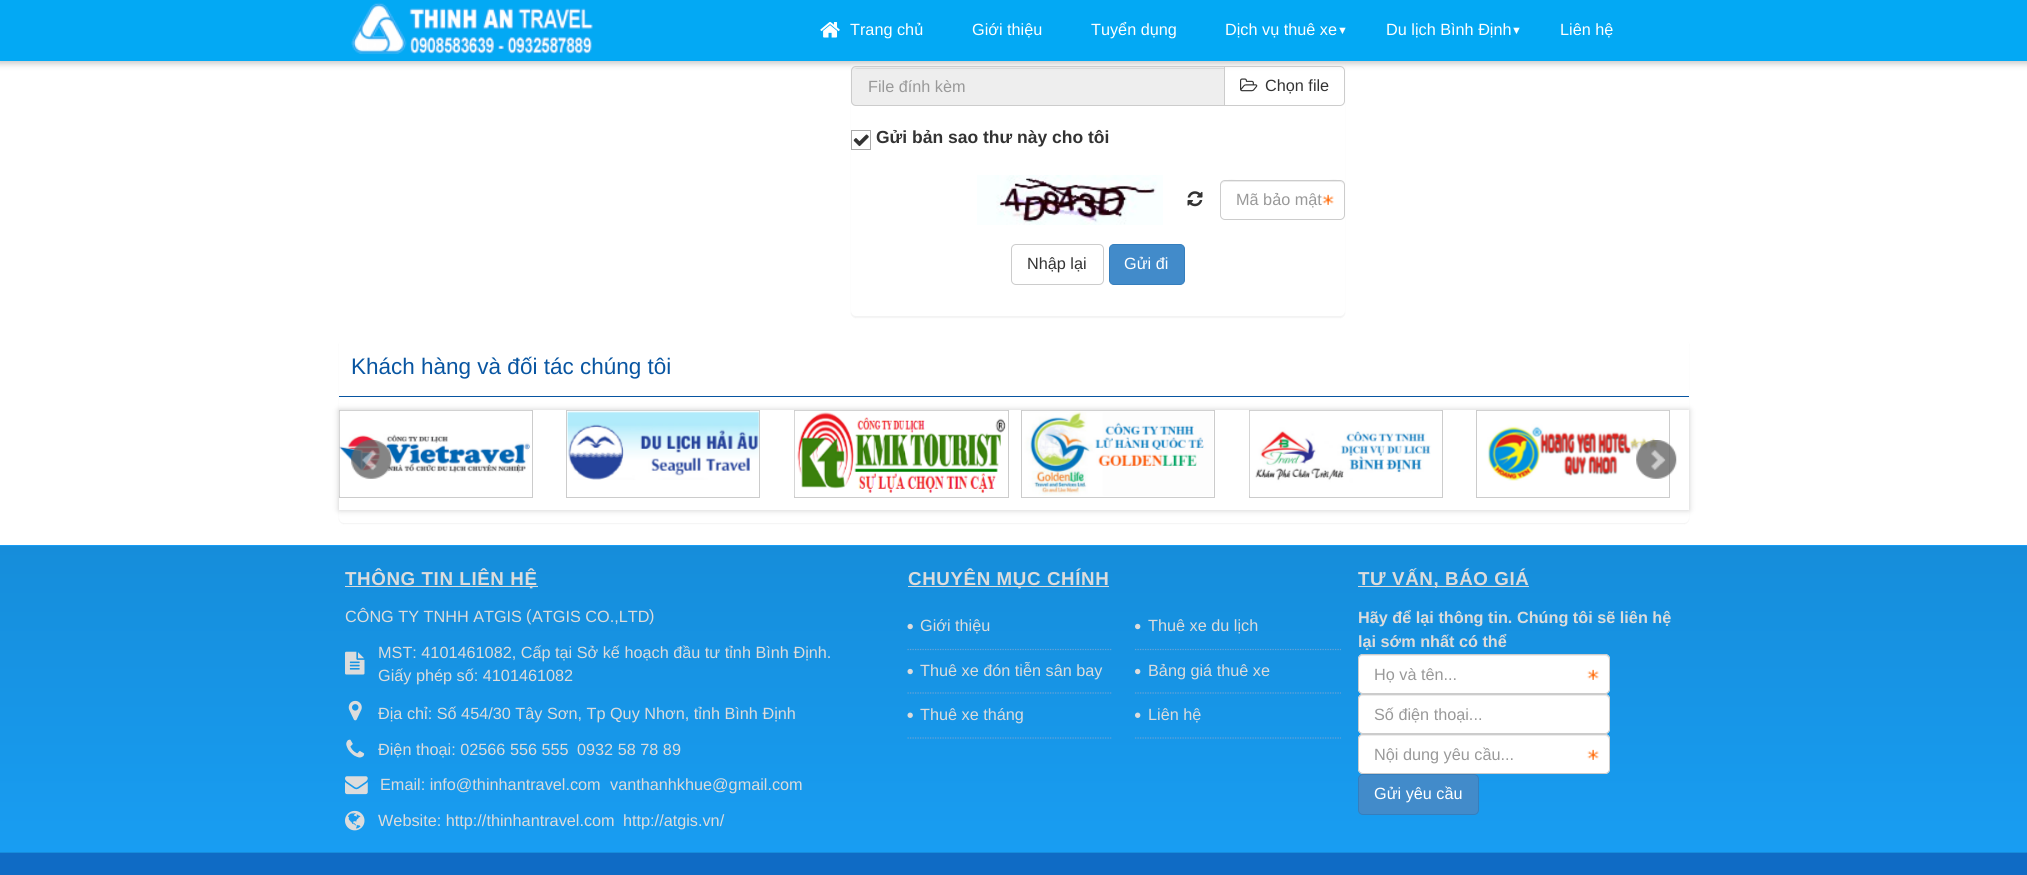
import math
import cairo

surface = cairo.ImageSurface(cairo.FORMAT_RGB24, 2027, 875)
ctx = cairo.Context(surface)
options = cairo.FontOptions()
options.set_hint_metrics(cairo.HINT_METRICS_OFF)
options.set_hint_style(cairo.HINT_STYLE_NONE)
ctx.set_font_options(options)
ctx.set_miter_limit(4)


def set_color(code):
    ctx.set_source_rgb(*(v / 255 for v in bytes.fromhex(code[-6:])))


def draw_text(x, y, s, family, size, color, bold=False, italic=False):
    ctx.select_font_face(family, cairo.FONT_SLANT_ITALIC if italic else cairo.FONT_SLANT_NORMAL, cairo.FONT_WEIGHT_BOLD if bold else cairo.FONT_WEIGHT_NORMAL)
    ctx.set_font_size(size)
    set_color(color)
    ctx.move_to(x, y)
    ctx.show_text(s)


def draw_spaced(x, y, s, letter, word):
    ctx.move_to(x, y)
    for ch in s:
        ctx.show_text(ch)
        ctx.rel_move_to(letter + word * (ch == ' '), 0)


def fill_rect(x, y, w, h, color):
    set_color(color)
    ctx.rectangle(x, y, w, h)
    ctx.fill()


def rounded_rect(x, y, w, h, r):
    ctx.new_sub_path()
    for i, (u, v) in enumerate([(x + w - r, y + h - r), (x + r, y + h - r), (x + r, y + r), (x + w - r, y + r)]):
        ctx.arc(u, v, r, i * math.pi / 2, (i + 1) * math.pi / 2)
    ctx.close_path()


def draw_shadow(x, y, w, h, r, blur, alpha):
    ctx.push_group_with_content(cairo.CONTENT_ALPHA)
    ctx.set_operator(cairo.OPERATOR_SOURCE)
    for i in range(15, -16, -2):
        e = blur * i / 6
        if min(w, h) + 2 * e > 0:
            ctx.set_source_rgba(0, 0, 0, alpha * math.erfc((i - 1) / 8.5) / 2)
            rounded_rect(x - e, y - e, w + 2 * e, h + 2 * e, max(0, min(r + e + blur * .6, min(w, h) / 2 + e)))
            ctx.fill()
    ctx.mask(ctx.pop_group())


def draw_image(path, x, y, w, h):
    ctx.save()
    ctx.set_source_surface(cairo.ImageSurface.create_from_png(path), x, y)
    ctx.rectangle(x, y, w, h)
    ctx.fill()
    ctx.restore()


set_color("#ffffff")
ctx.paint()
set_color("#000000")
draw_shadow(851, -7, 494, 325, 5, 0.5, 0.05)
set_color("#ffffff")
rounded_rect(851, -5, 494, 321, 5)
ctx.fill()
set_color("#eeeeee")
ctx.new_path()
ctx.move_to(856, 66)
ctx.line_to(1225, 66)
ctx.line_to(1225, 106)
ctx.line_to(856, 106)
ctx.curve_to(853, 106, 851, 104, 851, 101)
ctx.line_to(851, 71)
ctx.curve_to(851, 68, 853, 66, 856, 66)
ctx.close_path()
ctx.fill()
set_color("#dcdcdc")
ctx.new_path()
ctx.move_to(856, 69)
ctx.line_to(1224, 69)
ctx.line_to(1224, 68)
ctx.line_to(857, 68)
ctx.curve_to(856, 68, 855, 69, 854, 69)
ctx.close_path()
ctx.fill()
ctx.new_path()
ctx.move_to(856, 66.5)
ctx.line_to(1224.5, 66.5)
ctx.line_to(1224.5, 105.5)
ctx.line_to(856, 105.5)
ctx.curve_to(853.5, 105.5, 851.5, 103.5, 851.5, 101)
ctx.line_to(851.5, 71)
ctx.curve_to(851.5, 68.5, 853.5, 66.5, 856, 66.5)
ctx.close_path()
set_color("#cccccc")
ctx.set_line_width(1)
ctx.stroke()
set_color("#ffffff")
ctx.new_path()
ctx.move_to(1224.5, 66.5)
ctx.line_to(1340, 66.5)
ctx.curve_to(1342.5, 66.5, 1344.5, 68.5, 1344.5, 71)
ctx.line_to(1344.5, 101)
ctx.curve_to(1344.5, 103.5, 1342.5, 105.5, 1340, 105.5)
ctx.line_to(1224.5, 105.5)
ctx.close_path()
ctx.fill_preserve()
set_color("#cccccc")
ctx.stroke()
set_color("#cccccc")
draw_shadow(-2, -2, 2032, 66, 0, 3, 1)
fill_rect(0, 0, 2027, 61, "#03a9f4")
draw_image("assets/img1.png", 351, 2, 242, 52)
draw_image("assets/img2.png", 820, 22, 20, 16)
draw_text(850, 35, "Trang chủ", "Liberation Sans", 16.25, "#ffffff")
draw_text(972, 35, "Giới thiệu", "Liberation Sans", 16.25, "#ffffff")
draw_text(1091, 35, "Tuyển dụng", "Liberation Sans", 16.25, "#ffffff")
draw_text(1225, 35, "Dịch vụ thuê xe", "Liberation Sans", 16.25, "#ffffff")
draw_text(1337, 34, "▼", "Liberation Sans", 11, "#ffffff", italic=True)
draw_text(1386, 35, "Du lịch Bình Định", "Liberation Sans", 16.25, "#ffffff")
draw_text(1511, 34, "▼", "Liberation Sans", 11, "#ffffff", italic=True)
draw_text(1560, 35, "Liên hệ", "Liberation Sans", 16.25, "#ffffff")
draw_text(868, 92, "File đính kèm", "Liberation Sans", 16.25, "#999999")
draw_image("assets/img3.png", 1240, 78, 18, 14)
draw_text(1265, 91, "Chọn file", "Liberation Sans", 16.25, "#333333")
ctx.rectangle(851.5, 130.5, 19, 19)
set_color("#aaaaaa")
ctx.stroke()
draw_image("assets/img4.png", 853, 134, 16, 13)
draw_text(876, 143, "Gửi bản sao thư này cho tôi", "Liberation Sans", 17.5, "#333333", bold=True)
draw_image("assets/img5.png", 977, 175, 186, 50)
draw_image("assets/img6.png", 1187, 191, 16, 16)
draw_image("assets/img7.png", 1322, 194, 12, 11)
set_color("#ececec")
ctx.new_path()
ctx.move_to(1225, 182)
ctx.line_to(1340, 182)
ctx.curve_to(1342, 182, 1344, 184, 1344, 186)
ctx.curve_to(1344, 176, 1324, 181, 1321, 181)
ctx.line_to(1244, 181)
ctx.curve_to(1241, 181, 1221, 176, 1221, 186)
ctx.curve_to(1221, 184, 1223, 182, 1225, 182)
ctx.close_path()
ctx.fill()
rounded_rect(1220.5, 180.5, 124, 39, 4.5)
set_color("#cccccc")
ctx.stroke()
draw_text(1236, 205, "Mã bảo mật", "Liberation Sans", 16.25, "#999999")
rounded_rect(1011.5, 244.5, 92, 40, 4.5)
set_color("#cccccc")
ctx.stroke()
draw_text(1027, 269, "Nhập lại", "Liberation Sans", 16.25, "#333333")
set_color("#428bca")
rounded_rect(1109.5, 244.5, 75, 40, 4.5)
ctx.fill_preserve()
set_color("#357ebd")
ctx.stroke()
draw_text(1124, 269, "Gửi đi", "Liberation Sans", 16.25, "#ffffff")
set_color("#000000")
draw_shadow(339, 340, 1350, 184, 5, 0.5, 0.05)
set_color("#ffffff")
rounded_rect(339, 339, 1350, 184, 5)
ctx.fill()
fill_rect(339, 396, 1350, 1, "#0855a1")
draw_text(351, 374, "Khách hàng và đối tác chúng tôi", "Liberation Sans", 22.5, "#0855a1")
set_color("#cccccc")
draw_shadow(339, 410, 1350, 100, 0, 3, 1)
fill_rect(339, 410, 1350, 100, "#ffffff")
ctx.rectangle(339.5, 410.5, 193, 87)
set_color("#cccccc")
ctx.stroke()
draw_image("assets/img8.png", 339, 410, 192, 86)
ctx.rectangle(566.5, 410.5, 193, 87)
ctx.stroke()
draw_image("assets/img9.png", 567, 410, 192, 70)
ctx.rectangle(794.5, 410.5, 214, 87)
ctx.stroke()
draw_image("assets/img10.png", 794, 410, 213, 86)
ctx.rectangle(1021.5, 410.5, 193, 87)
ctx.stroke()
draw_image("assets/img11.png", 1023, 410, 190, 86)
ctx.rectangle(1249.5, 410.5, 193, 87)
ctx.stroke()
draw_image("assets/img12.png", 1249, 410, 192, 86)
ctx.rectangle(1476.5, 410.5, 193, 87)
ctx.stroke()
draw_image("assets/img13.png", 1478, 410, 191, 71)
draw_image("assets/img14.png", 351, 440, 41, 39)
draw_image("assets/img15.png", 1636, 440, 41, 39)
fill_rect(0, 545, 2027, 1, "#189cf4")
gradient = cairo.LinearGradient(1014, 546, 1014, 851)
gradient.add_color_stop_rgba(0, 0.086, 0.553, 0.855, 1)
gradient.add_color_stop_rgba(1, 0.094, 0.616, 0.949, 1)
ctx.set_source(gradient)
ctx.rectangle(0, 546, 2027, 305)
ctx.fill()
gradient = cairo.LinearGradient(1014, 851, 1014, 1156)
gradient.add_color_stop_rgba(0, 0.086, 0.549, 0.863, 1)
gradient.add_color_stop_rgba(1, 0.094, 0.612, 0.957, 1)
ctx.set_source(gradient)
ctx.rectangle(0, 852, 2027, 1)
ctx.fill()
fill_rect(0, 851, 2027, 1, "#189cf4")
fill_rect(345, 586, 193, 1, "#dcdcdc")
ctx.select_font_face("Liberation Sans", cairo.FONT_SLANT_NORMAL, cairo.FONT_WEIGHT_BOLD)
ctx.set_font_size(18.75)
draw_spaced(345, 585, "THÔNG TIN LIÊN HỆ", 0.6, 0)
draw_text(345, 622, "CÔNG TY TNHH ATGIS", "Liberation Sans", 16.25, "#dcdcdc")
draw_text(526, 621, "(", "Liberation Sans", 16.25, "#dcdcdc")
draw_text(532, 622, "ATGIS CO.,LTD", "Liberation Sans", 16.25, "#dcdcdc")
draw_text(649, 621, ")", "Liberation Sans", 16.25, "#dcdcdc")
draw_image("assets/img16.png", 345, 651, 20, 24)
draw_text(378, 658, "MST: 4101461082, Cấp tại Sở kế hoạch đầu tư tỉnh Bình Định.", "Liberation Sans", 16.25, "#dcdcdc")
draw_text(378, 681, "Giấy phép số: 4101461082", "Liberation Sans", 16.25, "#dcdcdc")
draw_image("assets/img17.png", 348, 700, 14, 21)
draw_text(378, 719, "Địa chỉ: Số 454/30 Tây Sơn, Tp Quy Nhơn, tỉnh Bình Định", "Liberation Sans", 16.25, "#dcdcdc")
draw_image("assets/img18.png", 346, 739, 19, 19)
draw_text(378, 755, "Điện thoại: 02566 556 555", "Liberation Sans", 16.25, "#dcdcdc")
draw_text(577, 755, "0932 58 78 89", "Liberation Sans", 16.25, "#dcdcdc")
draw_image("assets/img19.png", 345, 776, 23, 19)
draw_text(380, 790, "Email: info@thinhantravel.com", "Liberation Sans", 16.25, "#dcdcdc")
draw_text(610, 790, "vanthanhkhue@gmail.com", "Liberation Sans", 16.25, "#dcdcdc")
draw_image("assets/img20.png", 345, 810, 20, 21)
draw_text(378, 826, "Website: http://thinhantravel.com", "Liberation Sans", 16.25, "#dcdcdc")
draw_text(623, 826, "http://atgis.vn/", "Liberation Sans", 16.25, "#dcdcdc")
fill_rect(908, 586, 201, 1, "#dcdcdc")
ctx.select_font_face("Liberation Sans", cairo.FONT_SLANT_NORMAL, cairo.FONT_WEIGHT_BOLD)
ctx.set_font_size(18.75)
draw_spaced(908, 585, "CHUYÊN MỤC CHÍNH", 0.6, 0)
ctx.new_path()
ctx.move_to(907.5, 649.5)
ctx.line_to(1112.5, 649.5)
set_color("#6aa3d5")
ctx.set_line_width(1.2)
ctx.set_dash([1.25, 1.25])
ctx.stroke()
draw_image("assets/img21.png", 907, 623, 6, 7)
draw_text(920, 631, "Giới thiệu", "Liberation Sans", 16.25, "#dcdcdc")
ctx.new_path()
ctx.move_to(1135, 649.5)
ctx.line_to(1341, 649.5)
set_color("#6aa3d5")
ctx.stroke()
draw_image("assets/img22.png", 1135, 623, 6, 7)
draw_text(1148, 631, "Thuê xe du lịch", "Liberation Sans", 16.25, "#dcdcdc")
ctx.new_path()
ctx.move_to(907.5, 693)
ctx.line_to(1112.5, 693)
set_color("#6aa3d5")
ctx.stroke()
draw_image("assets/img23.png", 907, 668, 6, 7)
draw_text(920, 676, "Thuê xe đón tiễn sân bay", "Liberation Sans", 16.25, "#dcdcdc")
ctx.new_path()
ctx.move_to(1135, 693)
ctx.line_to(1341, 693)
set_color("#6aa3d5")
ctx.stroke()
draw_image("assets/img24.png", 1135, 668, 6, 7)
draw_text(1148, 676, "Bảng giá thuê xe", "Liberation Sans", 16.25, "#dcdcdc")
ctx.new_path()
ctx.move_to(907.5, 738)
ctx.line_to(1112.5, 738)
set_color("#6aa3d5")
ctx.stroke()
draw_image("assets/img25.png", 907, 712, 6, 6)
draw_text(920, 720, "Thuê xe tháng", "Liberation Sans", 16.25, "#dcdcdc")
ctx.new_path()
ctx.move_to(1135, 738)
ctx.line_to(1341, 738)
set_color("#6aa3d5")
ctx.stroke()
draw_image("assets/img26.png", 1135, 712, 6, 6)
draw_text(1148, 720, "Liên hệ", "Liberation Sans", 16.25, "#dcdcdc")
fill_rect(1358, 586, 171, 1, "#dcdcdc")
ctx.select_font_face("Liberation Sans", cairo.FONT_SLANT_NORMAL, cairo.FONT_WEIGHT_BOLD)
ctx.set_font_size(18.75)
draw_spaced(1358, 585, "TƯ VẤN, BÁO GIÁ", 0.6, 0)
draw_text(1358, 623, "Hãy để lại thông tin. Chúng tôi sẽ liên hệ", "Liberation Sans", 16.25, "#dcdcdc", bold=True)
draw_text(1358, 647, "lại sớm nhất có thể", "Liberation Sans", 16.25, "#dcdcdc", bold=True)
set_color("#ffffff")
rounded_rect(1358, 654, 252, 40, 5)
ctx.fill()
draw_image("assets/img7.png", 1587, 669, 12, 11)
set_color("#ececec")
ctx.new_path()
ctx.move_to(1362, 656)
ctx.line_to(1605, 656)
ctx.curve_to(1607, 656, 1609, 658, 1609, 660)
ctx.line_to(1609, 659)
ctx.curve_to(1609, 657, 1607, 655, 1605, 655)
ctx.line_to(1363, 655)
ctx.curve_to(1361, 655, 1359, 657, 1359, 659)
ctx.line_to(1359, 660)
ctx.curve_to(1359, 658, 1360, 656, 1362, 656)
ctx.close_path()
ctx.fill()
rounded_rect(1358.5, 654.5, 251, 39, 4.5)
set_color("#cccccc")
ctx.set_line_width(1)
ctx.set_dash([])
ctx.stroke()
draw_text(1374, 680, "Họ và tên...", "Liberation Sans", 16.25, "#999999")
set_color("#ffffff")
rounded_rect(1358, 694, 252, 40, 5)
ctx.fill()
set_color("#ececec")
ctx.new_path()
ctx.move_to(1362, 696)
ctx.line_to(1605, 696)
ctx.curve_to(1607, 696, 1609, 698, 1609, 700)
ctx.line_to(1609, 699)
ctx.curve_to(1609, 697, 1607, 695, 1605, 695)
ctx.line_to(1363, 695)
ctx.curve_to(1361, 695, 1359, 697, 1359, 699)
ctx.line_to(1359, 700)
ctx.curve_to(1359, 698, 1360, 696, 1362, 696)
ctx.close_path()
ctx.fill()
rounded_rect(1358.5, 694.5, 251, 39, 4.5)
set_color("#cccccc")
ctx.stroke()
draw_text(1374, 720, "Số điện thoại...", "Liberation Sans", 16.25, "#999999")
set_color("#ffffff")
rounded_rect(1358, 734, 252, 40, 5)
ctx.fill()
draw_image("assets/img7.png", 1587, 749, 12, 11)
set_color("#ececec")
ctx.new_path()
ctx.move_to(1362, 736)
ctx.line_to(1605, 736)
ctx.curve_to(1607, 736, 1609, 738, 1609, 740)
ctx.line_to(1609, 739)
ctx.curve_to(1609, 737, 1607, 735, 1605, 735)
ctx.line_to(1363, 735)
ctx.curve_to(1361, 735, 1359, 737, 1359, 739)
ctx.line_to(1359, 740)
ctx.curve_to(1359, 738, 1360, 736, 1362, 736)
ctx.close_path()
ctx.fill()
rounded_rect(1358.5, 734.5, 251, 39, 4.5)
set_color("#cccccc")
ctx.stroke()
draw_text(1374, 760, "Nội dung yêu cầu...", "Liberation Sans", 16.25, "#999999")
set_color("#428bca")
rounded_rect(1358.5, 774.5, 120, 40, 4.5)
ctx.fill_preserve()
set_color("#357ebd")
ctx.stroke()
draw_text(1374, 799, "Gửi yêu cầu", "Liberation Sans", 16.25, "#ffffff")
fill_rect(0, 853, 2027, 22, "#0f6bc5")
surface.write_to_png("output.png")
